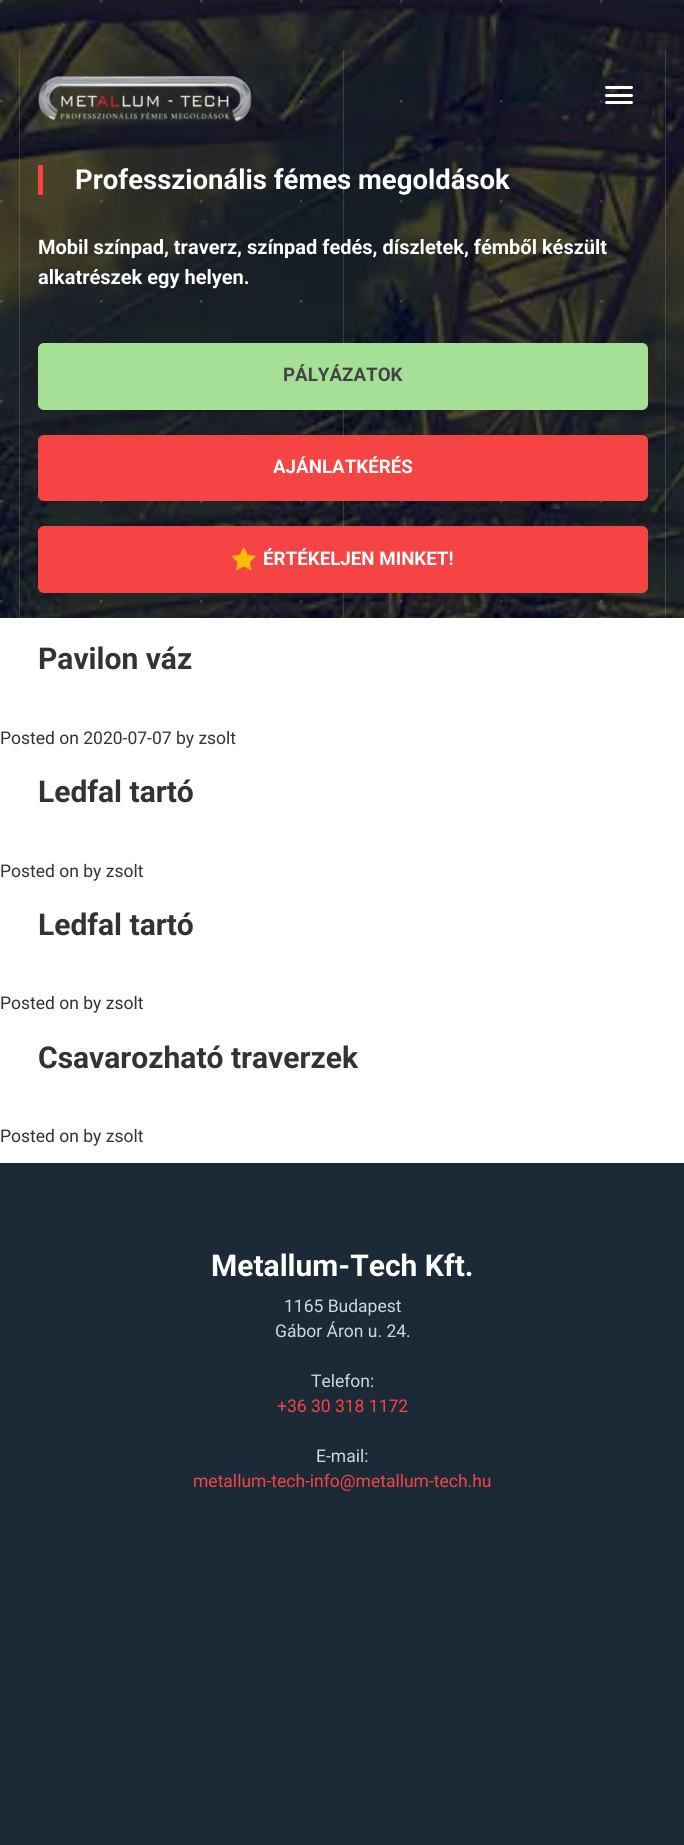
import math
import cairo

surface = cairo.ImageSurface(cairo.FORMAT_RGB24, 684, 1845)
ctx = cairo.Context(surface)
options = cairo.FontOptions()
options.set_hint_metrics(cairo.HINT_METRICS_OFF)
options.set_hint_style(cairo.HINT_STYLE_NONE)
ctx.set_font_options(options)
ctx.set_miter_limit(4)


def set_color(code):
    ctx.set_source_rgb(*(v / 255 for v in bytes.fromhex(code[-6:])))


def draw_text(x, y, s, family, size, color, bold=False, italic=False):
    ctx.select_font_face(family, cairo.FONT_SLANT_ITALIC if italic else cairo.FONT_SLANT_NORMAL, cairo.FONT_WEIGHT_BOLD if bold else cairo.FONT_WEIGHT_NORMAL)
    ctx.set_font_size(size)
    set_color(color)
    ctx.move_to(x, y)
    ctx.show_text(s)


def fill_rect(x, y, w, h, color):
    set_color(color)
    ctx.rectangle(x, y, w, h)
    ctx.fill()


def rounded_rect(x, y, w, h, r):
    ctx.new_sub_path()
    for i, (u, v) in enumerate([(x + w - r, y + h - r), (x + r, y + h - r), (x + r, y + r), (x + w - r, y + r)]):
        ctx.arc(u, v, r, i * math.pi / 2, (i + 1) * math.pi / 2)
    ctx.close_path()


def draw_image(path, x, y, w, h):
    ctx.save()
    ctx.set_source_surface(cairo.ImageSurface.create_from_png(path), x, y)
    ctx.rectangle(x, y, w, h)
    ctx.fill()
    ctx.restore()


set_color("#ffffff")
ctx.paint()
draw_image("assets/img1.png", 0, 0, 684, 618)
draw_image("assets/img2.png", 0, 0, 603, 603)
ctx.set_source_rgba(1, 1, 1, 0.15)
ctx.rectangle(19, 50, 1, 568)
ctx.fill()
ctx.rectangle(343, 50, 1, 568)
ctx.fill()
ctx.rectangle(665, 50, 1, 568)
ctx.fill()
draw_image("assets/img3.png", 38, 76, 214, 46)
set_color("#ffffff")
rounded_rect(605, 86, 28, 3, 1.5)
ctx.fill()
rounded_rect(605, 94, 28, 3, 1.5)
ctx.fill()
rounded_rect(605, 101, 28, 3, 1.5)
ctx.fill()
fill_rect(38, 165, 5, 30, "#f64444")
draw_text(75, 189, "Professzionális fémes megoldások", "Roboto", 27.5, "#ffffff", bold=True)
draw_text(38, 254, "Mobil színpad, traverz, színpad fedés, díszletek, fémből készült", "Roboto", 20, "#ffffff", bold=True)
draw_text(38, 284, "alkatrészek egy helyen.", "Roboto", 20, "#ffffff", bold=True)
set_color("#a6e096")
rounded_rect(38.5, 343.5, 609, 66, 5.5)
ctx.fill_preserve()
ctx.set_line_width(1)
ctx.stroke()
draw_text(283, 381, "PÁLYÁZATOK", "Roboto", 18.75, "#444444", bold=True)
set_color("#f64444")
rounded_rect(38.5, 435.5, 609, 65, 5.5)
ctx.fill_preserve()
ctx.stroke()
draw_text(273, 473, "AJÁNLATKÉRÉS", "Roboto", 18.75, "#ffffff", bold=True)
set_color("#f64444")
rounded_rect(38.5, 526.5, 609, 66, 5.5)
ctx.fill_preserve()
ctx.stroke()
draw_image("assets/img4.png", 231, 547, 25, 24)
draw_text(263, 565, "ÉRTÉKELJEN MINKET!", "Roboto", 18.75, "#ffffff", bold=True)
draw_text(38, 669, "Pavilon váz", "Roboto", 30, "#333333", bold=True)
draw_text(0, 744, "Posted on 2020-07-07 by zsolt", "Roboto", 17.5, "#333333")
draw_text(38, 802, "Ledfal tartó", "Roboto", 30, "#333333", bold=True)
draw_text(0, 877, "Posted on by zsolt", "Roboto", 17.5, "#333333")
draw_text(38, 935, "Ledfal tartó", "Roboto", 30, "#333333", bold=True)
draw_text(0, 1009, "Posted on by zsolt", "Roboto", 17.5, "#333333")
draw_text(38, 1068, "Csavarozható traverzek", "Roboto", 30, "#333333", bold=True)
draw_text(0, 1142, "Posted on by zsolt", "Roboto", 17.5, "#333333")
fill_rect(0, 1163, 684, 682, "#1c2936")
draw_text(211, 1276, "Metallum-Tech Kft.", "Roboto", 30, "#ffffff", bold=True)
draw_text(284, 1312, "1165 Budapest", "Roboto", 17.5, "#d0d7de")
draw_text(275, 1337, "Gábor Áron u. 24.", "Roboto", 17.5, "#d0d7de")
draw_text(311, 1387, "Telefon:", "Roboto", 17.5, "#d0d7de")
draw_text(277, 1412, "+36 30 318 1172", "Roboto", 17.5, "#f64444")
draw_text(316, 1462, "E-mail:", "Roboto", 17.5, "#d0d7de")
draw_text(193, 1487, "metallum-tech-info@metallum-tech.hu", "Roboto", 17.5, "#f64444")
surface.write_to_png("output.png")
